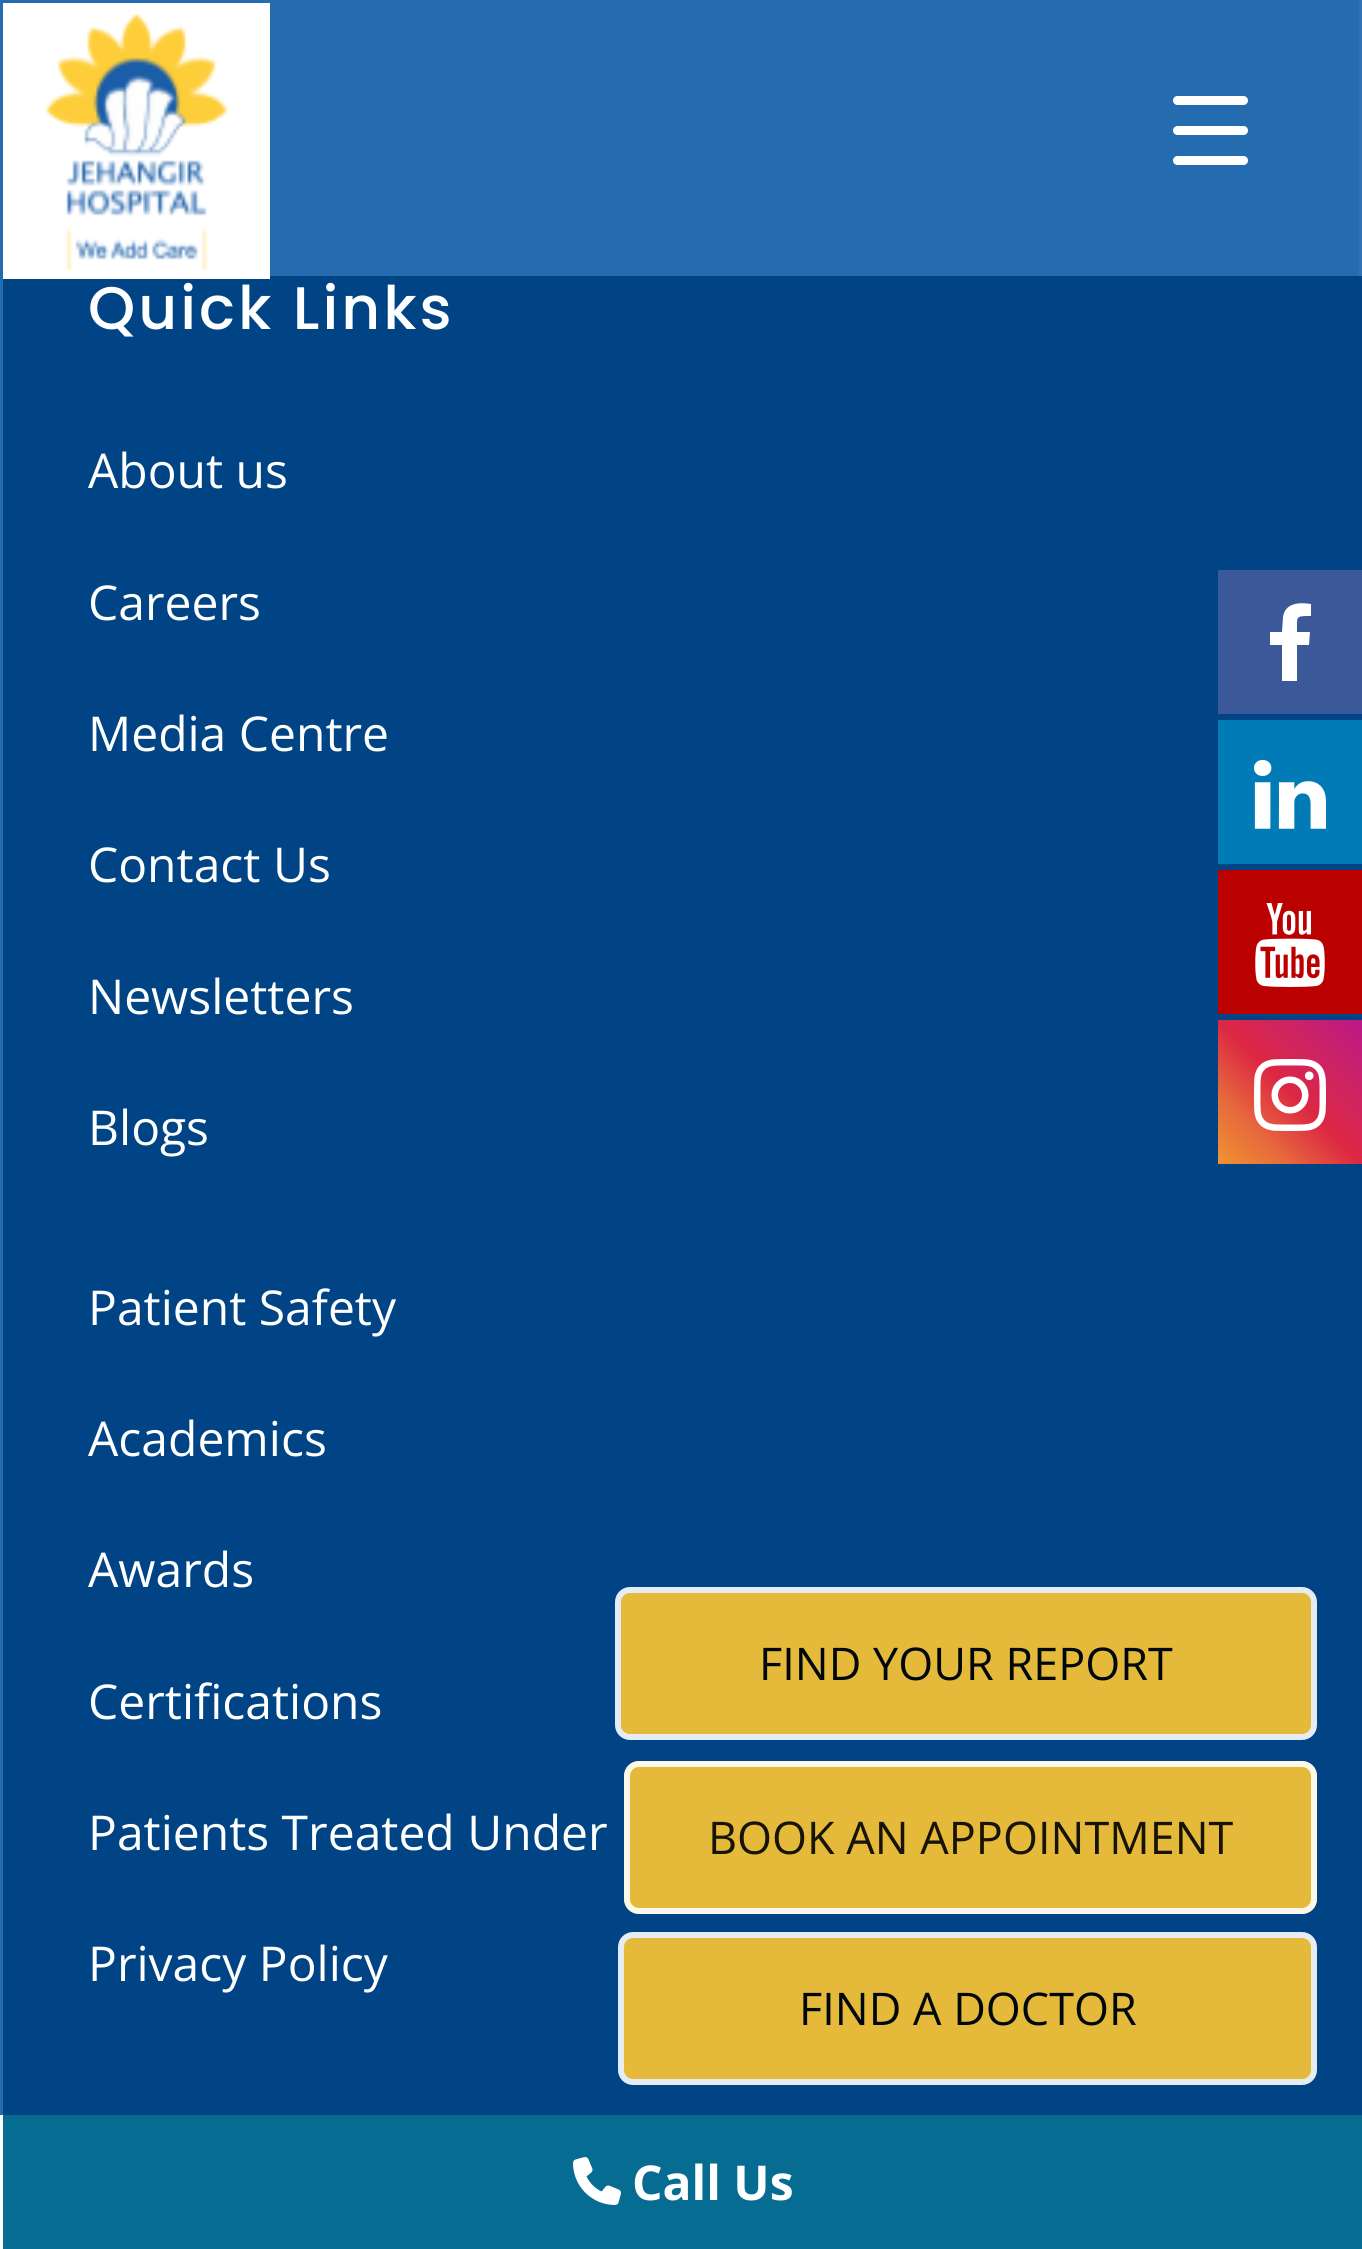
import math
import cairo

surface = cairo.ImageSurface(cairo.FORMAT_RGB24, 1362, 2249)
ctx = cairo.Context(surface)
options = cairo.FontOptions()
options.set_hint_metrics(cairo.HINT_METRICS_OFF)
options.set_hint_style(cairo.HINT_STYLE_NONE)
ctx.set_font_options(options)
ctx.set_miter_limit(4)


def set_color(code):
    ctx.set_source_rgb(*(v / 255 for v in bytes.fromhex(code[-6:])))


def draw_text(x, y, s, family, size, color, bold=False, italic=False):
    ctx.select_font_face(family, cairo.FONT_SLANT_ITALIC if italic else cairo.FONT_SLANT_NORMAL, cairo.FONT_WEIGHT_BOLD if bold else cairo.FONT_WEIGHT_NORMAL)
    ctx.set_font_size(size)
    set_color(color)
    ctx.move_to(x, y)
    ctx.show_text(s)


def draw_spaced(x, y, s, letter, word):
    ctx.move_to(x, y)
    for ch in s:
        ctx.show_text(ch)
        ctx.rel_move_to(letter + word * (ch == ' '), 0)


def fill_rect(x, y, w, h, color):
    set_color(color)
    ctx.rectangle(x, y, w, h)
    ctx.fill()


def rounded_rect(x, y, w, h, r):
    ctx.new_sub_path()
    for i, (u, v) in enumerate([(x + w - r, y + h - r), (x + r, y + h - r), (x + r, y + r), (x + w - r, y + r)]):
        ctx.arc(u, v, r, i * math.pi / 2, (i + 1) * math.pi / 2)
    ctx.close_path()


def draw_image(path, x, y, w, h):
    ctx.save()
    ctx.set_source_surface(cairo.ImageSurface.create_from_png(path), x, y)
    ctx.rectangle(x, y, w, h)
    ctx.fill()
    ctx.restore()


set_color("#004485")
ctx.paint()
fill_rect(3, 0, 1356, 276, "#256baf")
fill_rect(1359, 0, 3, 276, "#3072b3")
fill_rect(0, 0, 3, 2115, "#256baf")
fill_rect(3, 3, 267, 276, "#ffffff")
draw_image("assets/img1.png", 46, 13, 183, 258)
rounded_rect(1173, 126, 75, 9, 4.5)
ctx.fill()
rounded_rect(1173, 96, 75, 9, 4.5)
ctx.fill()
rounded_rect(1173, 156, 75, 9, 4.5)
ctx.fill()
ctx.select_font_face("Poppins Medium")
ctx.set_font_size(60)
draw_spaced(88, 329, "Quick Links", 3, 0)
draw_text(88, 488, "About us", "Open Sans", 48, "#ffffff")
draw_text(88, 620, "Careers", "Open Sans", 48, "#ffffff")
draw_text(88, 751, "Media Centre", "Open Sans", 48, "#ffffff")
draw_text(88, 882, "Contact Us", "Open Sans", 48, "#ffffff")
draw_text(88, 1014, "Newsletters", "Open Sans", 48, "#ffffff")
draw_text(88, 1145, "Blogs", "Open Sans", 48, "#ffffff")
draw_text(88, 1325, "Patient Safety", "Open Sans", 48, "#ffffff")
draw_text(88, 1456, "Academics", "Open Sans", 48, "#ffffff")
draw_text(88, 1587, "Awards", "Open Sans", 48, "#ffffff")
draw_text(88, 1719, "Certifications", "Open Sans", 48, "#ffffff")
draw_text(88, 1850, "Patients Treated Under", "Open Sans", 48, "#ffffff")
draw_text(88, 1981, "Privacy Policy", "Open Sans", 48, "#ffffff")
fill_rect(1218, 570, 144, 144, "#3b5998")
set_color("#ffffff")
ctx.new_path()
ctx.move_to(1311, 604)
ctx.line_to(1311, 616)
ctx.curve_to(1295, 616, 1297, 616, 1297, 632)
ctx.line_to(1310, 632)
ctx.line_to(1309, 645)
ctx.line_to(1297, 645)
ctx.line_to(1297, 681)
ctx.line_to(1282, 681)
ctx.line_to(1282, 645)
ctx.line_to(1270, 645)
ctx.line_to(1270, 632)
ctx.line_to(1282, 632)
ctx.line_to(1283, 617)
ctx.curve_to(1285, 603, 1299, 602, 1311, 604)
ctx.close_path()
ctx.fill()
fill_rect(1218, 720, 144, 144, "#007bb6")
draw_image("assets/img2.png", 1254, 759, 72, 70)
fill_rect(1218, 870, 144, 144, "#bb0000")
draw_image("assets/img3.png", 1255, 903, 70, 84)
gradient = cairo.LinearGradient(1218, 1164, 1362, 1020)
gradient.add_color_stop_rgba(0, 0.941, 0.58, 0.2, 1)
gradient.add_color_stop_rgba(0.25, 0.902, 0.408, 0.235, 1)
gradient.add_color_stop_rgba(0.5, 0.863, 0.153, 0.263, 1)
gradient.add_color_stop_rgba(0.75, 0.8, 0.137, 0.4, 1)
gradient.add_color_stop_rgba(1, 0.737, 0.094, 0.533, 1)
ctx.set_source(gradient)
ctx.rectangle(1218, 1020, 144, 144)
ctx.fill()
draw_image("assets/img4.png", 1254, 1059, 72, 72)
set_color("#e5b939")
rounded_rect(618, 1590, 696, 147, 12)
ctx.fill_preserve()
set_color("#e6ecf3")
ctx.set_line_width(6)
ctx.stroke()
draw_text(759, 1680, "FIND YOUR REPORT", "Open Sans", 45, "#00070d")
ctx.set_source_rgba(0.996, 0.776, 0.192, 0.9)
rounded_rect(624, 1761, 693, 153, 15)
ctx.fill()
rounded_rect(627, 1764, 687, 147, 12)
ctx.set_source_rgba(1, 1, 1, 0.9)
ctx.stroke()
draw_text(708, 1854, "BOOK AN APPOINTMENT", "Open Sans", 45, "#171306")
set_color("#e5b939")
rounded_rect(621, 1935, 693, 147, 12)
ctx.fill_preserve()
set_color("#e6ecf3")
ctx.stroke()
draw_text(799, 2025, "FIND A DOCTOR", "Open Sans", 45, "#00070d")
fill_rect(0, 2115, 3, 134, "#ffffff")
fill_rect(3, 2115, 1359, 134, "#066c91")
draw_image("assets/img5.png", 573, 2157, 48, 48)
draw_text(632, 2200, "Call Us", "Open Sans", 48, "#ffffff", bold=True)
surface.write_to_png("output.png")
